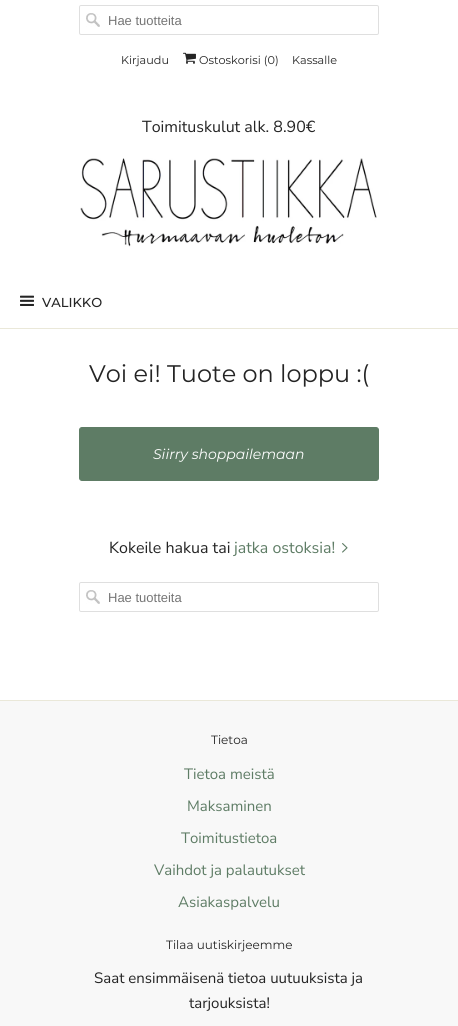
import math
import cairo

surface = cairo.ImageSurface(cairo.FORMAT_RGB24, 458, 1026)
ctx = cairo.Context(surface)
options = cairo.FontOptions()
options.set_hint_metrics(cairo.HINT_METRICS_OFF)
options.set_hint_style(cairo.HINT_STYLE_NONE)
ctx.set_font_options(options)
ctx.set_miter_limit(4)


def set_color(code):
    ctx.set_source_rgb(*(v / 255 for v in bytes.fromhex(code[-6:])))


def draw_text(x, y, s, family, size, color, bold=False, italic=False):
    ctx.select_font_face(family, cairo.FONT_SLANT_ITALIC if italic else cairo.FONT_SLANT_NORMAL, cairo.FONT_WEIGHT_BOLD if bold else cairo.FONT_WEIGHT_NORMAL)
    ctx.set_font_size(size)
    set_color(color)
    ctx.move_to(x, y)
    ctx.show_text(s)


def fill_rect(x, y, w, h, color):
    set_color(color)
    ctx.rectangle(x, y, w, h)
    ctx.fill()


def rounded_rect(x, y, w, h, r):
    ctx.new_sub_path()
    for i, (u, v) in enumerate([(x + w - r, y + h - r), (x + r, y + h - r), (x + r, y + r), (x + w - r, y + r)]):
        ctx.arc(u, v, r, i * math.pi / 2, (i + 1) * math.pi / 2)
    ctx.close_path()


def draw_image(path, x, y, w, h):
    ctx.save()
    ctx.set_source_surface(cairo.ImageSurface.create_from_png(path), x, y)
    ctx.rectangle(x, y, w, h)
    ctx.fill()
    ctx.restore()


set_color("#ffffff")
ctx.paint()
fill_rect(0, 328, 458, 1, "#eae8d9")
draw_image("assets/img1.png", 86, 13, 14, 14)
rounded_rect(79.5, 5.5, 299, 29, 1.5)
set_color("#dfdfdf")
ctx.set_line_width(1)
ctx.stroke()
draw_text(108, 25, "Hae tuotteita", "Liberation Sans", 13, "#757575")
draw_text(121, 64, "Kirjaudu", "Montserrat", 11.25, "#242424")
draw_image("assets/img2.png", 183, 52, 13, 12)
draw_text(199, 64, "Ostoskorisi (0)", "Montserrat", 11.25, "#242424")
draw_text(292, 64, "Kassalle", "Montserrat", 11.25, "#242424")
draw_text(142, 132, "Toimituskulut alk. 8.90€", "Nunito Sans", 16, "#242424")
draw_image("assets/img3.png", 80, 158, 297, 89)
draw_image("assets/img4.png", 20, 295, 14, 11)
draw_text(42, 307, "VALIKKO", "Montserrat Medium", 13, "#242424")
draw_text(89, 382, "Voi ei! Tuote on loppu :(", "Montserrat", 24, "#242424")
set_color("#5e7c65")
rounded_rect(79.5, 427.5, 299, 53, 2.5)
ctx.fill_preserve()
ctx.stroke()
draw_text(153, 459, "Siirry shoppailemaan", "Montserrat", 14, "#ffffff", italic=True)
draw_text(109, 553, "Kokeile hakua tai", "Nunito Sans", 16, "#242424")
draw_text(234, 553, "jatka ostoksia!", "Nunito Sans", 16, "#5e7c65")
draw_image("assets/img5.png", 342, 543, 6, 10)
draw_image("assets/img1.png", 86, 590, 14, 14)
rounded_rect(79.5, 582.5, 299, 29, 1.5)
set_color("#dfdfdf")
ctx.stroke()
draw_text(108, 602, "Hae tuotteita", "Liberation Sans", 13, "#757575")
fill_rect(0, 701, 458, 325, "#f8f8f8")
fill_rect(0, 700, 458, 1, "#eae8d9")
draw_text(211, 744, "Tietoa", "Montserrat", 12, "#242424")
draw_text(184, 779, "Tietoa meistä", "Nunito Sans", 15, "#5e7c65")
draw_text(187, 811, "Maksaminen", "Nunito Sans", 15, "#5e7c65")
draw_text(181, 843, "Toimitustietoa", "Nunito Sans", 15, "#5e7c65")
draw_text(154, 875, "Vaihdot ja palautukset", "Nunito Sans", 15, "#5e7c65")
draw_text(178, 907, "Asiakaspalvelu", "Nunito Sans", 15, "#5e7c65")
draw_text(166, 949, "Tilaa uutiskirjeemme", "Montserrat", 12, "#242424")
draw_text(94, 983, "Saat ensimmäisenä tietoa uutuuksista ja", "Nunito Sans", 15, "#242424")
draw_text(189, 1008, "tarjouksista!", "Nunito Sans", 15, "#242424")
surface.write_to_png("output.png")
